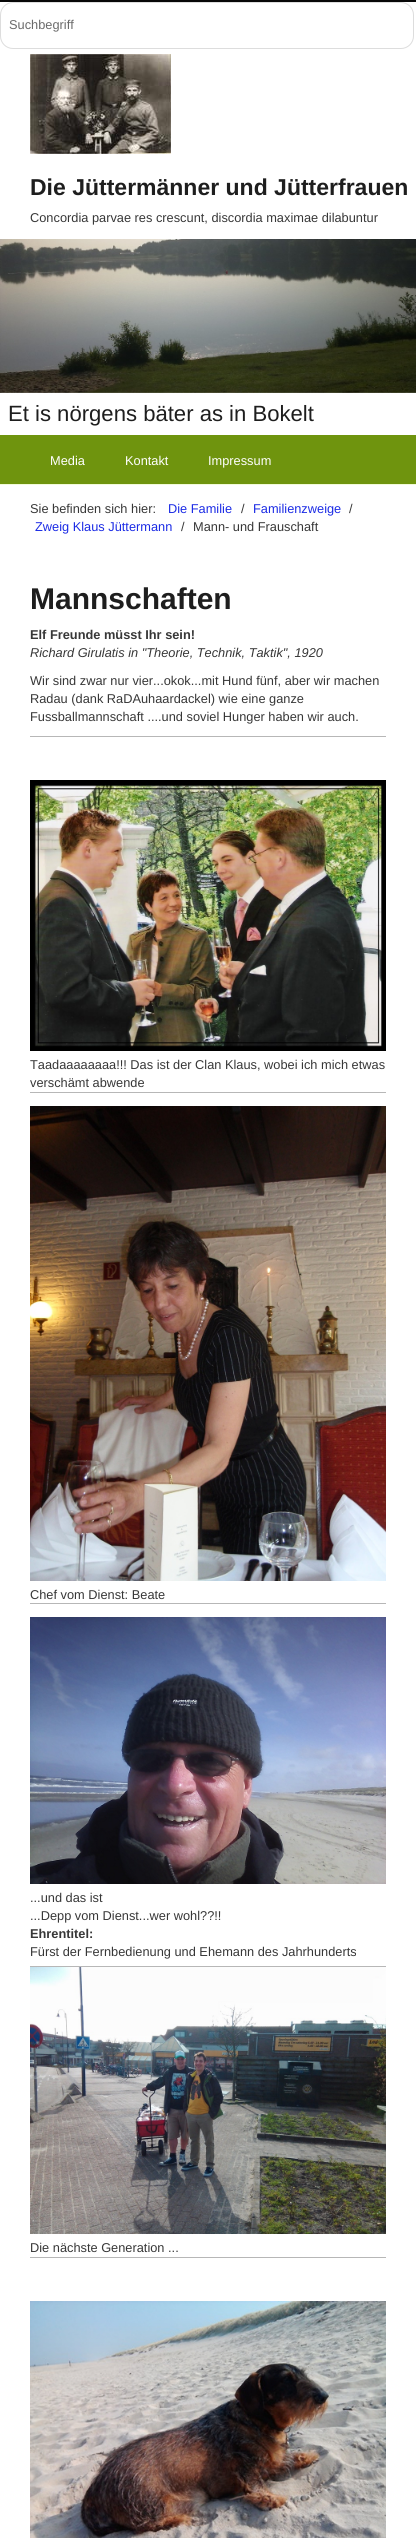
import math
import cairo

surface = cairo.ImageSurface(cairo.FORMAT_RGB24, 416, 2538)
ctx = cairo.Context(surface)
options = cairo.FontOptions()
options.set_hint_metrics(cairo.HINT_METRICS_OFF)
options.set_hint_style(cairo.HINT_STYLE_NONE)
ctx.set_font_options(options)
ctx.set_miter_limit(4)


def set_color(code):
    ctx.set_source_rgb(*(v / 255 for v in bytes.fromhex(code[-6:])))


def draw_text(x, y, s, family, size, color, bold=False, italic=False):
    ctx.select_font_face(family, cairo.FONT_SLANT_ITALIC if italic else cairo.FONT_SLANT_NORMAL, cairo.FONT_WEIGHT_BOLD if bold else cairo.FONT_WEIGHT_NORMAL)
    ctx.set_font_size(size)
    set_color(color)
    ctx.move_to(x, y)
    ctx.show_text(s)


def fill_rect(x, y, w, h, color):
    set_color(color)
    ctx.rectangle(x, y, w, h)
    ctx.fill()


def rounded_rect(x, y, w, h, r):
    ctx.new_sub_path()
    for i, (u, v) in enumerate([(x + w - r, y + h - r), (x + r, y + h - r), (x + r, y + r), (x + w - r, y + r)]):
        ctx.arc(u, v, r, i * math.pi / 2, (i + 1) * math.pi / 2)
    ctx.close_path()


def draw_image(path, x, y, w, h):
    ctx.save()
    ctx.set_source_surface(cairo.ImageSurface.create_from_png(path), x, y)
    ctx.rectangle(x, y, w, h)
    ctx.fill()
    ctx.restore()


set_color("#ffffff")
ctx.paint()
fill_rect(0, 0, 416, 2, "#070707")
rounded_rect(0.5, 2.5, 413, 46, 12.5)
set_color("#dddddd")
ctx.set_line_width(1)
ctx.stroke()
draw_text(9, 29, "Suchbegriff", "Liberation Sans", 12.8, "#6a6a6a")
draw_image("assets/img1.png", 30, 54, 141, 100)
draw_text(30, 195, "Die Jüttermänner und Jütterfrauen", "Liberation Sans", 23, "#1e1e1e", bold=True)
draw_text(30, 222, "Concordia parvae res crescunt, discordia maximae dilabuntur", "Liberation Sans", 12.8, "#373737")
draw_image("assets/img2.png", 0, 239, 416, 154)
draw_text(8, 421, "Et is nörgens bäter as in Bokelt", "Liberation Sans", 22.1, "#1e1e1e")
fill_rect(0, 435, 416, 49, "#6f940e")
fill_rect(0, 484, 416, 1, "#f2fbd9")
draw_text(50, 465, "Media", "Liberation Sans", 12.8, "#ffffff")
draw_text(125, 465, "Kontakt", "Liberation Sans", 12.8, "#ffffff")
draw_text(208, 465, "Impressum", "Liberation Sans", 12.8, "#ffffff")
draw_text(30, 513, "Sie befinden sich hier:", "Liberation Sans", 12.8, "#373737")
draw_text(168, 513, "Die Familie", "Liberation Sans", 12.8, "#1b2be5")
draw_text(241, 513, "/", "Liberation Sans", 12.8, "#373737")
draw_text(253, 513, "Familienzweige", "Liberation Sans", 12.8, "#1b2be5")
draw_text(349, 513, "/", "Liberation Sans", 12.8, "#373737")
draw_text(35, 531, "Zweig Klaus Jüttermann", "Liberation Sans", 12.8, "#1b2be5")
draw_text(181, 531, "/", "Liberation Sans", 12.8, "#373737")
draw_text(193, 531, "Mann- und Frauschaft", "Liberation Sans", 12.8, "#373737")
fill_rect(30, 736, 356, 1, "#b7b7b7")
draw_text(30, 609, "Mannschaften", "Liberation Sans", 30, "#1e1e1e", bold=True)
draw_text(30, 639, "Elf Freunde müsst Ihr sein!", "Liberation Sans", 12.8, "#373737", bold=True)
draw_text(30, 657, "Richard Girulatis in \"Theorie, Technik, Taktik\", 1920", "Liberation Sans", 12.8, "#373737", italic=True)
draw_text(30, 685, "Wir sind zwar nur vier...okok...mit Hund fünf, aber wir machen", "Liberation Sans", 12.8, "#373737")
draw_text(30, 703, "Radau (dank RaDAuhaardackel) wie eine ganze", "Liberation Sans", 12.8, "#373737")
draw_text(30, 721, "Fussballmannschaft ....und soviel Hunger haben wir auch.", "Liberation Sans", 12.8, "#373737")
fill_rect(30, 1092, 356, 1, "#b7b7b7")
draw_image("assets/img3.png", 30, 780, 356, 271)
draw_text(30, 1069, "Taadaaaaaaaa!!! Das ist der Clan Klaus, wobei ich mich etwas", "Liberation Sans", 12.8, "#373737")
draw_text(30, 1087, "verschämt abwende", "Liberation Sans", 12.8, "#373737")
fill_rect(30, 1603, 356, 1, "#b7b7b7")
draw_image("assets/img4.png", 30, 1106, 356, 475)
draw_text(30, 1599, "Chef vom Dienst: Beate", "Liberation Sans", 12.8, "#373737")
fill_rect(30, 1966, 356, 1, "#b7b7b7")
draw_image("assets/img5.png", 30, 1617, 356, 267)
draw_text(30, 1902, "...und das ist", "Liberation Sans", 12.8, "#373737")
draw_text(30, 1920, "...Depp vom Dienst...wer wohl??!!", "Liberation Sans", 12.8, "#373737")
draw_text(30, 1938, "Ehrentitel:", "Liberation Sans", 12.8, "#373737", bold=True)
draw_text(30, 1956, "Fürst der Fernbedienung und Ehemann des Jahrhunderts", "Liberation Sans", 12.8, "#373737")
fill_rect(30, 2257, 356, 1, "#b7b7b7")
draw_image("assets/img6.png", 30, 1967, 356, 267)
draw_text(30, 2252, "Die nächste Generation ...", "Liberation Sans", 12.8, "#373737")
draw_image("assets/img7.png", 30, 2301, 356, 237)
surface.write_to_png("output.png")
